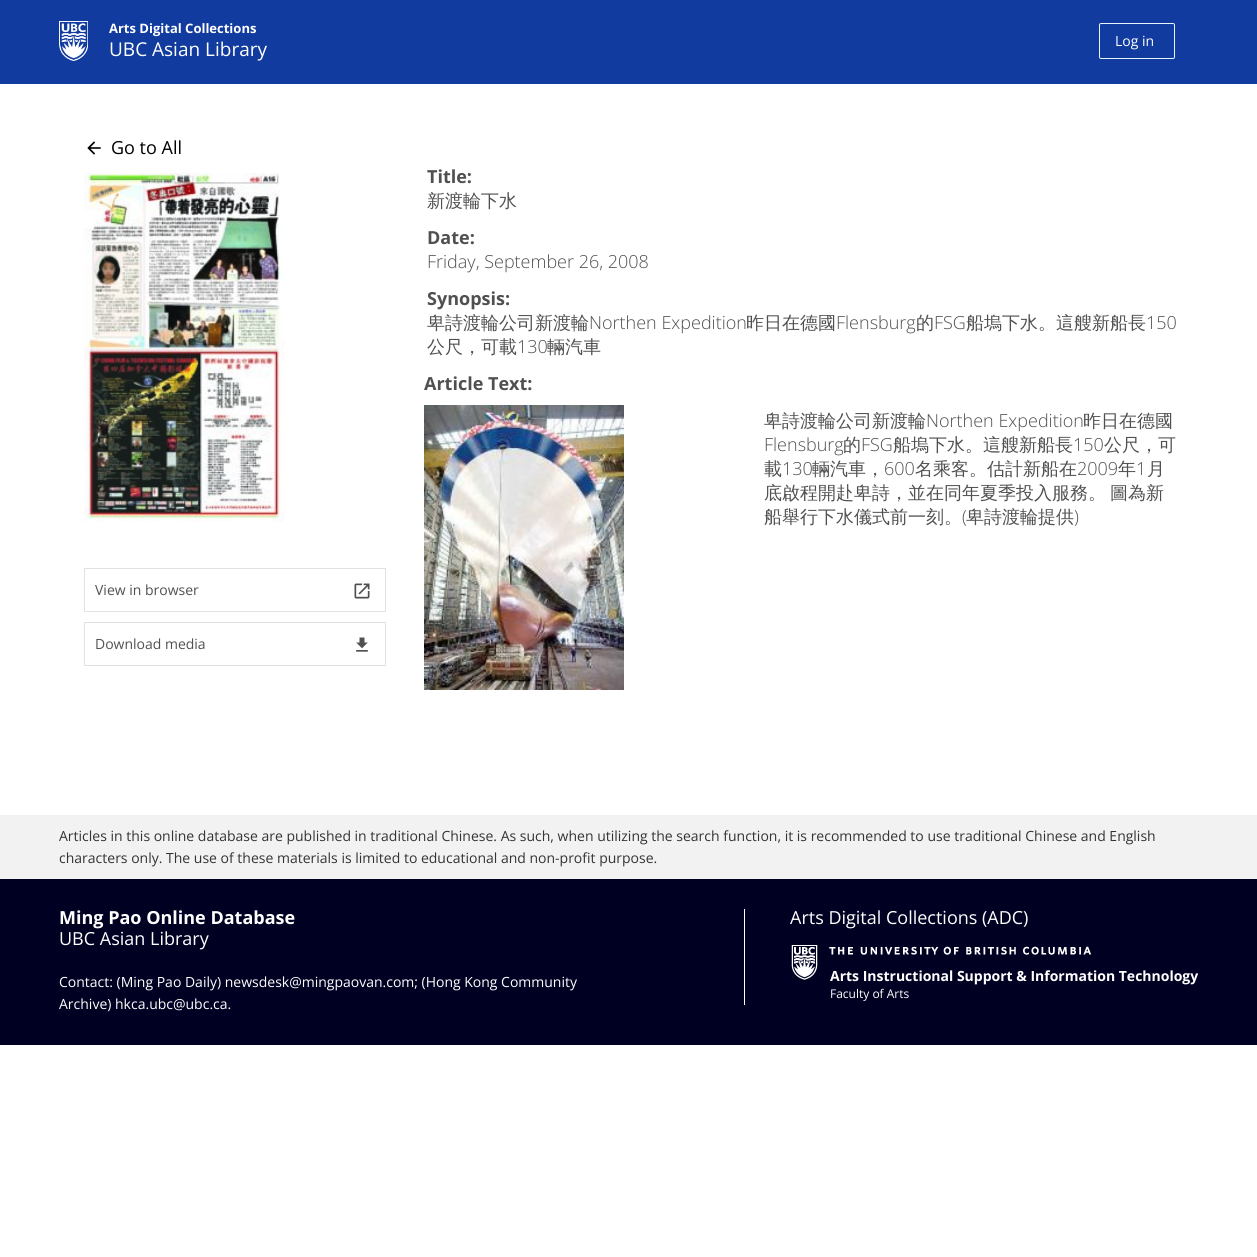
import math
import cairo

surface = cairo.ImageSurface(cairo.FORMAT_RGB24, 1257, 1257)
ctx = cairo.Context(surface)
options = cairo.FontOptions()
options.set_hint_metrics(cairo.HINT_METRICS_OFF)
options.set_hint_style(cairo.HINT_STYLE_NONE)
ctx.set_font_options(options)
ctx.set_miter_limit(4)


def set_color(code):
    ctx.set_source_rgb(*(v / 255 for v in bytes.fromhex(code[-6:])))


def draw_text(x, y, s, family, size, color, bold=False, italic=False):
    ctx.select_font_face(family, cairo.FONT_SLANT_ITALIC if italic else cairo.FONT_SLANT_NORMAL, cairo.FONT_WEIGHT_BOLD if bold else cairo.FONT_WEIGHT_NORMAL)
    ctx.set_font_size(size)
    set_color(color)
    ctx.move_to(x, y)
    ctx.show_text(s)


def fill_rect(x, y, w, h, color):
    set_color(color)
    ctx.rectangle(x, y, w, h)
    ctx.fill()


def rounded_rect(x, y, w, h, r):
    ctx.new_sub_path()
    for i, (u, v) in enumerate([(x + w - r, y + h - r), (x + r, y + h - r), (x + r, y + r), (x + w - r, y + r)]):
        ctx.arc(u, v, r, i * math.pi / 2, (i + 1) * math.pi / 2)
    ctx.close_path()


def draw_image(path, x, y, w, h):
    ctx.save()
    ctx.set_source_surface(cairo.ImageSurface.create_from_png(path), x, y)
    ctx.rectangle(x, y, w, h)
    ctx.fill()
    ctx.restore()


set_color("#ffffff")
ctx.paint()
fill_rect(0, 0, 1257, 84, "#113b9e")
draw_image("assets/img1.png", 59, 21, 29, 40)
draw_text(109, 33, "Arts Digital Collections", "Open Sans", 13, "#ffffff", bold=True)
draw_text(109, 56, "UBC Asian Library", "Open Sans", 19, "#ffffff")
rounded_rect(1099.5, 23.5, 75, 35, 1.5)
set_color("#e7f3fe")
ctx.set_line_width(1)
ctx.stroke()
draw_text(1115, 46, "Log in", "Open Sans", 14, "#ffffff")
draw_image("assets/img2.png", 87, 141, 14, 14)
draw_text(111, 154, "Go to All", "Open Sans", 18, "#000000")
draw_image("assets/img3.png", 84, 173, 200, 349)
ctx.rectangle(84.5, 568.5, 301, 43)
set_color("#e2e2e2")
ctx.stroke()
draw_text(95, 595, "View in browser", "Open Sans", 14, "#505050")
draw_image("assets/img4.png", 354, 583, 16, 16)
ctx.rectangle(84.5, 622.5, 301, 43)
set_color("#e2e2e2")
ctx.stroke()
draw_text(95, 649, "Download media", "Open Sans", 14, "#505050")
draw_image("assets/img5.png", 356, 637, 12, 15)
draw_text(427, 183, "Title:", "Open Sans", 18, "#505050", bold=True)
draw_text(427, 207, "新渡輪下水", "WenQuanYi Zen Hei Medium", 18, "#505050")
draw_text(427, 244, "Date:", "Open Sans", 18, "#505050", bold=True)
draw_text(427, 268, "Friday, September 26, 2008", "Open Sans Light", 18, "#505050")
draw_text(427, 305, "Synopsis:", "Open Sans", 18, "#505050", bold=True)
draw_text(427, 329, "卑詩渡輪公司新渡輪", "WenQuanYi Zen Hei Medium", 18, "#505050")
draw_text(589, 329, "Northen Expedition", "Open Sans Light", 18, "#505050")
draw_text(746, 329, "昨日在德國", "WenQuanYi Zen Hei Medium", 18, "#505050")
draw_text(836, 329, "Flensburg", "Open Sans Light", 18, "#505050")
draw_text(916, 329, "的", "WenQuanYi Zen Hei Medium", 18, "#505050")
draw_text(934, 329, "FSG", "Open Sans Light", 18, "#505050")
draw_text(966, 329, "船塢下水。這艘新船長", "WenQuanYi Zen Hei Medium", 18, "#505050")
draw_text(1146, 329, "150", "Open Sans Light", 18, "#505050")
draw_text(427, 353, "公尺，可載", "WenQuanYi Zen Hei Medium", 18, "#505050")
draw_text(517, 353, "130", "Open Sans Light", 18, "#505050")
draw_text(547, 353, "輛汽車", "WenQuanYi Zen Hei Medium", 18, "#505050")
draw_text(424, 390, "Article Text:", "Open Sans", 18, "#505050", bold=True)
draw_image("assets/img6.png", 424, 405, 200, 285)
draw_text(764, 427, "卑詩渡輪公司新渡輪", "WenQuanYi Zen Hei Medium", 18, "#505050")
draw_text(926, 427, "Northen Expedition", "Open Sans Light", 18, "#505050")
draw_text(1083, 427, "昨日在德國", "WenQuanYi Zen Hei Medium", 18, "#505050")
draw_text(764, 451, "Flensburg", "Open Sans Light", 18, "#505050")
draw_text(843, 451, "的", "WenQuanYi Zen Hei Medium", 18, "#505050")
draw_text(861, 451, "FSG", "Open Sans Light", 18, "#505050")
draw_text(893, 451, "船塢下水。這艘新船長", "WenQuanYi Zen Hei Medium", 18, "#505050")
draw_text(1073, 451, "150", "Open Sans Light", 18, "#505050")
draw_text(1104, 451, "公尺，可", "WenQuanYi Zen Hei Medium", 18, "#505050")
draw_text(764, 475, "載", "WenQuanYi Zen Hei Medium", 18, "#505050")
draw_text(782, 475, "130", "Open Sans Light", 18, "#505050")
draw_text(812, 475, "輛汽車，", "WenQuanYi Zen Hei Medium", 18, "#505050")
draw_text(884, 475, "600", "Open Sans Light", 18, "#505050")
draw_text(915, 475, "名乘客。估計新船在", "WenQuanYi Zen Hei Medium", 18, "#505050")
draw_text(1077, 475, "2009", "Open Sans Light", 18, "#505050")
draw_text(1118, 475, "年", "WenQuanYi Zen Hei Medium", 18, "#505050")
draw_text(1136, 475, "1", "Open Sans Light", 18, "#505050")
draw_text(1147, 475, "月", "WenQuanYi Zen Hei Medium", 18, "#505050")
draw_text(764, 499, "底啟程開赴卑詩，並在同年夏季投入服務。", "WenQuanYi Zen Hei Medium", 18, "#505050")
draw_text(1110, 499, "圖為新", "WenQuanYi Zen Hei Medium", 18, "#505050")
draw_text(764, 523, "船舉行下水儀式前一刻。", "WenQuanYi Zen Hei Medium", 18, "#505050")
draw_text(962, 523, "(", "Open Sans Light", 18, "#505050")
draw_text(966, 523, "卑詩渡輪提供", "WenQuanYi Zen Hei Medium", 18, "#505050")
draw_text(1074, 523, ")", "Open Sans Light", 18, "#505050")
fill_rect(0, 815, 1257, 64, "#f2f2f2")
draw_text(59, 841, "Articles in this online database are published in traditional Chinese. As such, when utilizing the search function, it is recommended to use traditional Chinese and English", "Open Sans", 14, "#333333")
draw_text(59, 863, "characters only. The use of these materials is limited to educational and non-profit purpose.", "Open Sans", 14, "#333333")
fill_rect(0, 879, 1257, 166, "#000022")
draw_text(59, 924, "Ming Pao Online Database", "Open Sans", 18, "#ffffff", bold=True)
draw_text(59, 945, "UBC Asian Library", "Open Sans", 18, "#ffffff")
draw_text(59, 987, "Contact: (Ming Pao Daily) newsdesk@mingpaovan.com; (Hong Kong Community", "Open Sans", 14, "#ffffff")
draw_text(59, 1009, "Archive) hkca.ubc@ubc.ca.", "Open Sans", 14, "#ffffff")
fill_rect(744, 909, 1, 96, "#ffffff")
draw_text(790, 924, "Arts Digital Collections (ADC)", "Open Sans", 18, "#ffffff")
draw_text(830, 981, "Arts Instructional Support & Information Technology", "Open Sans", 14, "#ffffff", bold=True)
draw_image("assets/img7.png", 791, 945, 300, 35)
draw_text(830, 998, "Faculty of Arts", "Open Sans", 12, "#ffffff")
surface.write_to_png("output.png")
